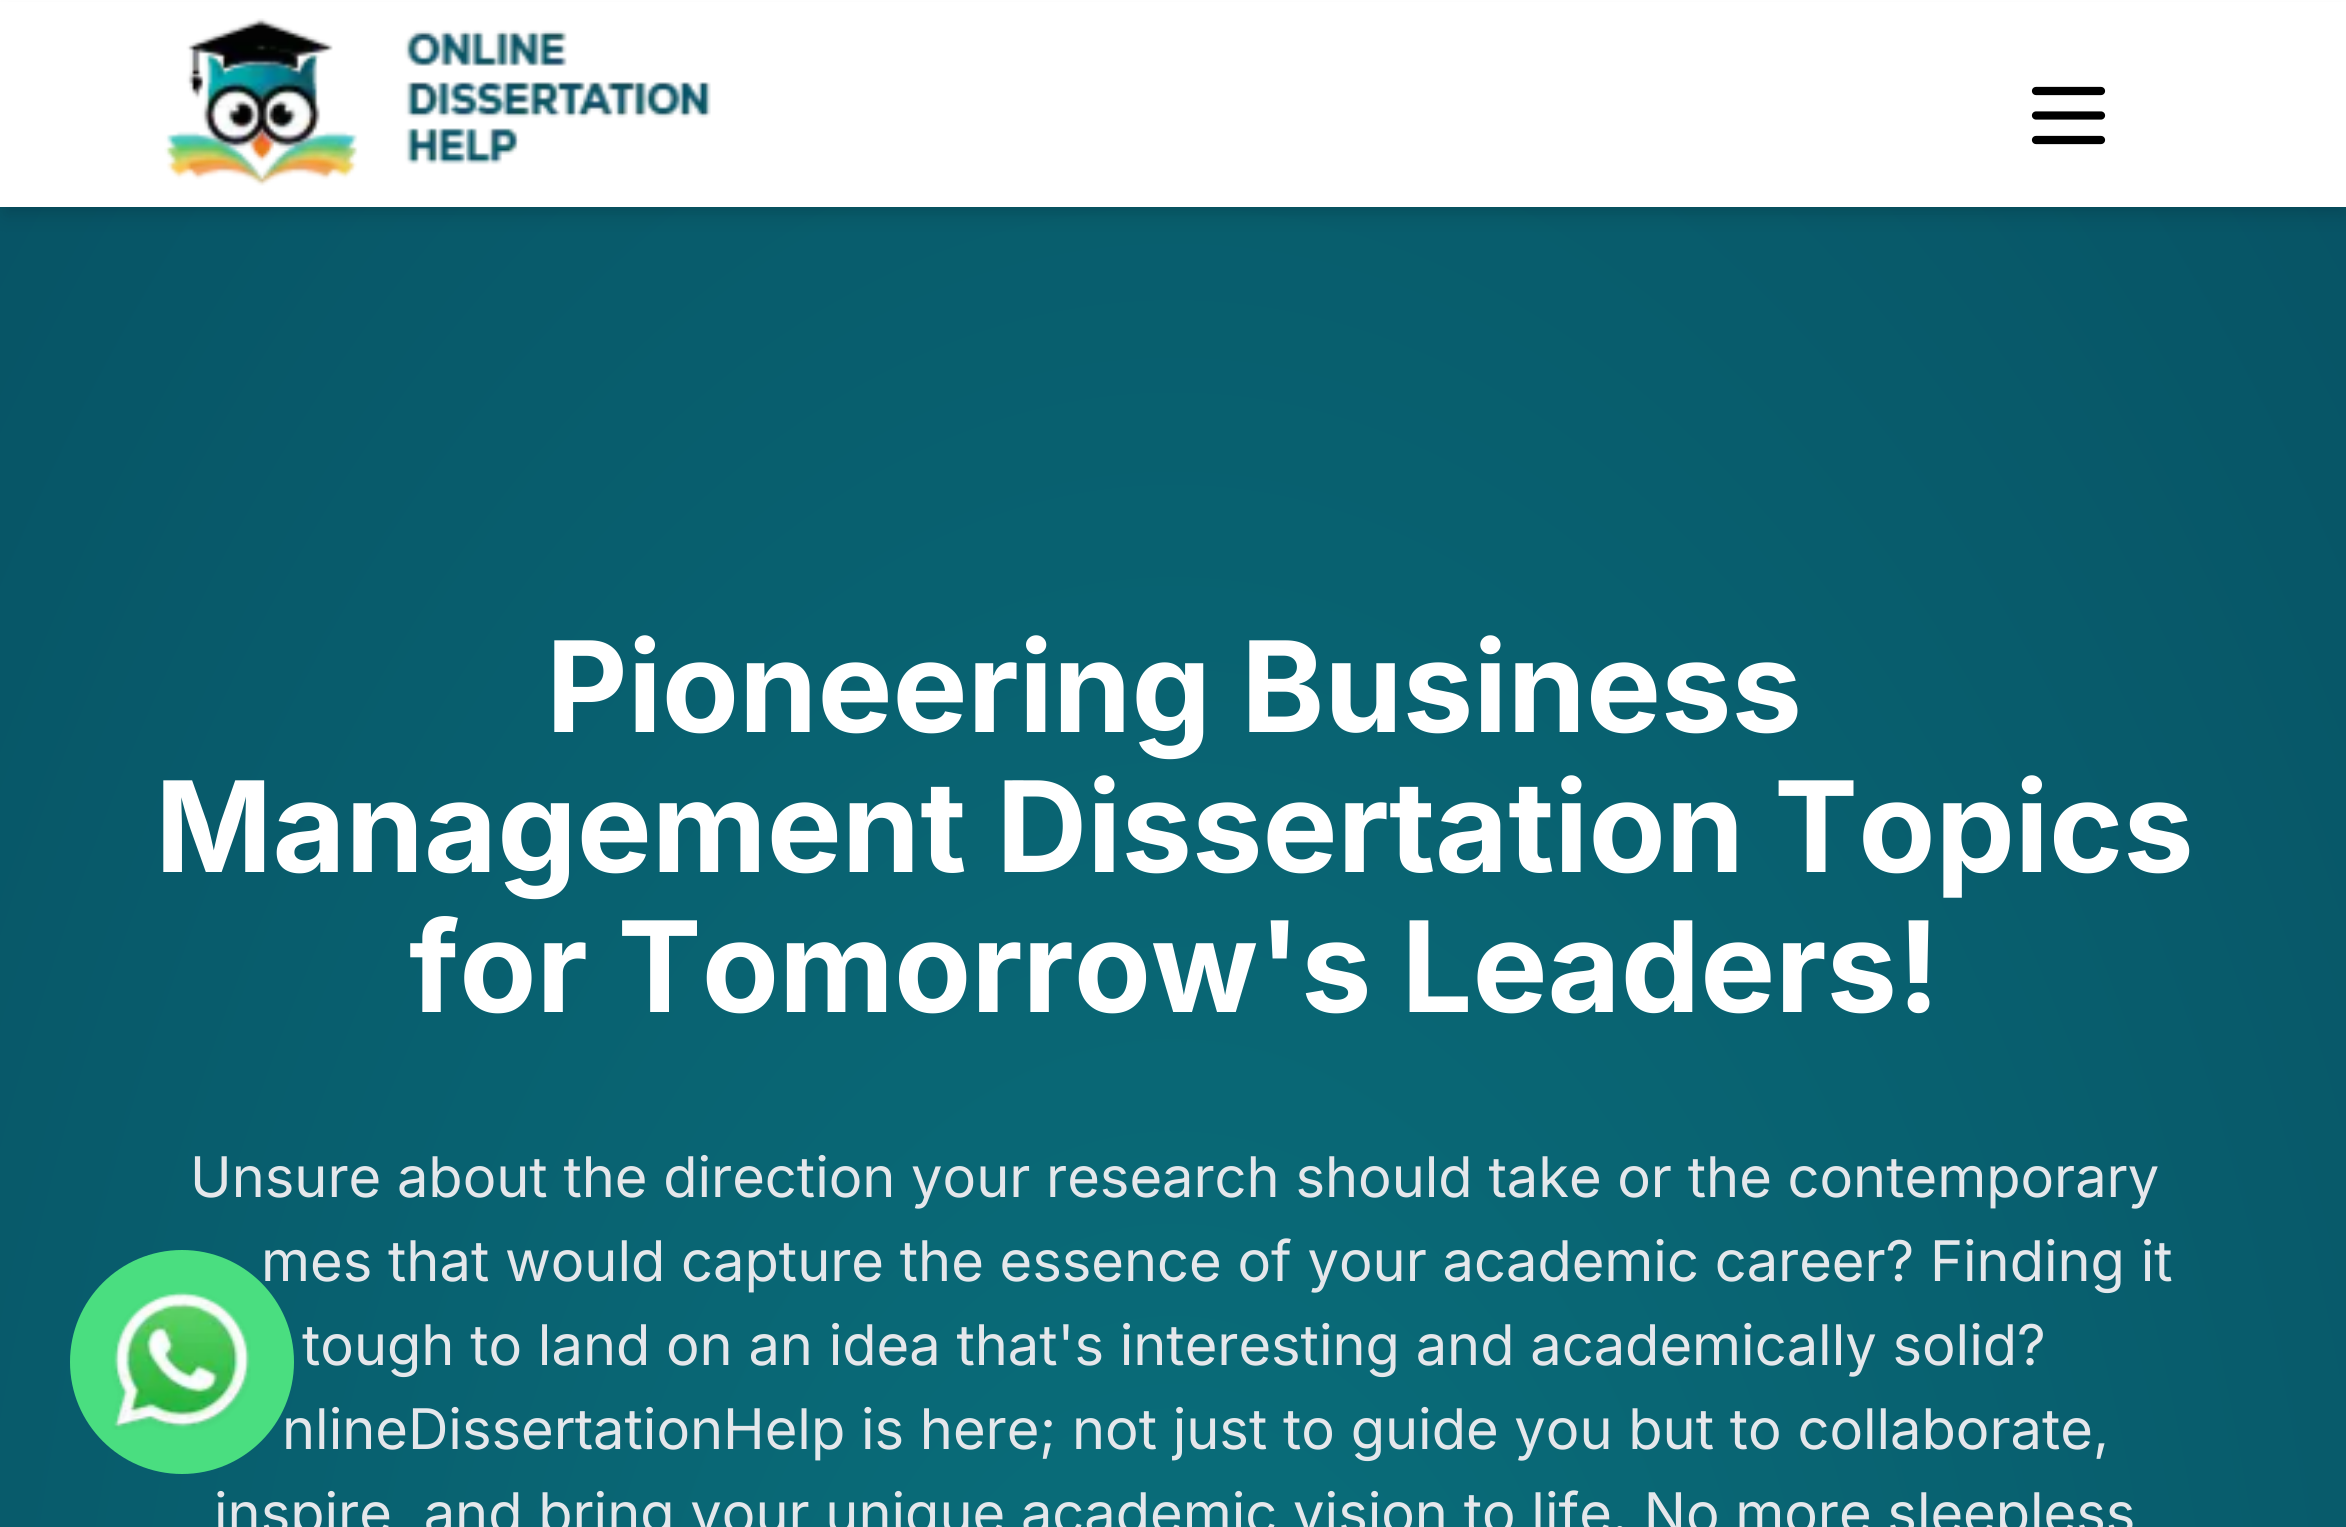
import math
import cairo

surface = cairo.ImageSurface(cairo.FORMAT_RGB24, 2346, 1527)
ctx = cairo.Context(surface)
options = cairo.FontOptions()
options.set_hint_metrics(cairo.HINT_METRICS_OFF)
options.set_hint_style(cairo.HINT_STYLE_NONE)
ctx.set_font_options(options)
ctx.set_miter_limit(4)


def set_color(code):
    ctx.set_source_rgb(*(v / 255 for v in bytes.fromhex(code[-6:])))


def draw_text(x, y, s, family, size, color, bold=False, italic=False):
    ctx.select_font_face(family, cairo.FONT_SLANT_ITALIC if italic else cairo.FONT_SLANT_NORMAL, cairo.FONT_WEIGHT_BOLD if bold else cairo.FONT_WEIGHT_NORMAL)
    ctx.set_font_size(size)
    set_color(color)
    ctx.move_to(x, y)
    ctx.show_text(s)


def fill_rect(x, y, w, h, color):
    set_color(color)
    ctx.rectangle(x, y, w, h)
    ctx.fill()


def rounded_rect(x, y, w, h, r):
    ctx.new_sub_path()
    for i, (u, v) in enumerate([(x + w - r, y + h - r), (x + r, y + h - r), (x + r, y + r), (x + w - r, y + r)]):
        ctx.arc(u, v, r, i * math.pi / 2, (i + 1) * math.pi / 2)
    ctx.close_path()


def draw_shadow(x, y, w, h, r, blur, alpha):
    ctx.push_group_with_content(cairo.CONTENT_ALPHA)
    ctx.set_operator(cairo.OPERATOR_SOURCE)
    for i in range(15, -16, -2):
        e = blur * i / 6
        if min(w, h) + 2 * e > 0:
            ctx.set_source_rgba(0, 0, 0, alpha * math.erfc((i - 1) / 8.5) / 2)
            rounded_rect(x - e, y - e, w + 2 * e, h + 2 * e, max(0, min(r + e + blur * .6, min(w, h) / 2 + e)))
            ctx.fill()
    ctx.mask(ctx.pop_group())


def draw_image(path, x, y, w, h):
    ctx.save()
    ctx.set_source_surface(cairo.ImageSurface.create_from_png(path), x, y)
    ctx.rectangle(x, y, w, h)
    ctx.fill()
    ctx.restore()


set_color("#ffffff")
ctx.paint()
gradient = cairo.RadialGradient(0, 0, 0, 0, 0, 1)
gradient.set_matrix(cairo.Matrix(1 / 1661, 0, 0, 1 / 2816, -1 * 1174 / 1661, -1 * 1992 / 2816))
gradient.add_color_stop_rgba(0, 0.039, 0.443, 0.49, 1)
gradient.add_color_stop_rgba(1, 0.027, 0.322, 0.392, 1)
ctx.set_source(gradient)
ctx.rectangle(0, 207, 2346, 1320)
ctx.fill()
set_color("#000000")
draw_shadow(7, 14, 2335, 193, 0, 7, 0.1)
draw_shadow(4, 18, 2341, 199, 0, 10.5, 0.1)
fill_rect(0, 2, 2346, 205, "#ffffff")
draw_image("assets/img1.png", 164, 18, 547, 168)
ctx.new_path()
ctx.move_to(2036, 115.5)
ctx.line_to(2101, 115.5)
set_color("#000000")
ctx.set_line_width(8.2)
ctx.set_line_cap(cairo.LINE_CAP_ROUND)
ctx.set_line_join(cairo.LINE_JOIN_ROUND)
ctx.stroke()
ctx.new_path()
ctx.move_to(2036, 91)
ctx.line_to(2101, 91)
ctx.stroke()
ctx.new_path()
ctx.move_to(2036, 140)
ctx.line_to(2101, 140)
ctx.stroke()
draw_text(546, 732, "Pioneering Business", "Inter", 126, "#ffffff", bold=True)
draw_text(155, 872, "Management Dissertation Topics", "Inter", 126, "#ffffff", bold=True)
draw_text(409, 1012, "for Tomorrow's Leaders!", "Inter", 126, "#ffffff", bold=True)
draw_text(190, 1197, "Unsure about the direction your research should take or the contemporary", "Inter", 56, "#e5e7eb")
draw_text(261, 1281, "mes that would capture the essence of your academic career? Finding it", "Inter", 56, "#e5e7eb")
draw_text(302, 1365, "tough to land on an idea that's interesting and academically solid?", "Inter", 56, "#e5e7eb")
draw_text(282, 1449, "nlineDissertationHelp is here; not just to guide you but to collaborate,", "Inter", 56, "#e5e7eb")
draw_text(214, 1533, "inspire, and bring your unique academic vision to life. No more sleepless", "Inter", 56, "#e5e7eb")
set_color("#4ade80")
ctx.new_path()
ctx.arc(182, 1362, 112, 0, 2 * math.pi)
ctx.fill()
draw_image("assets/img2.png", 111, 1292, 140, 138)
surface.write_to_png("output.png")
